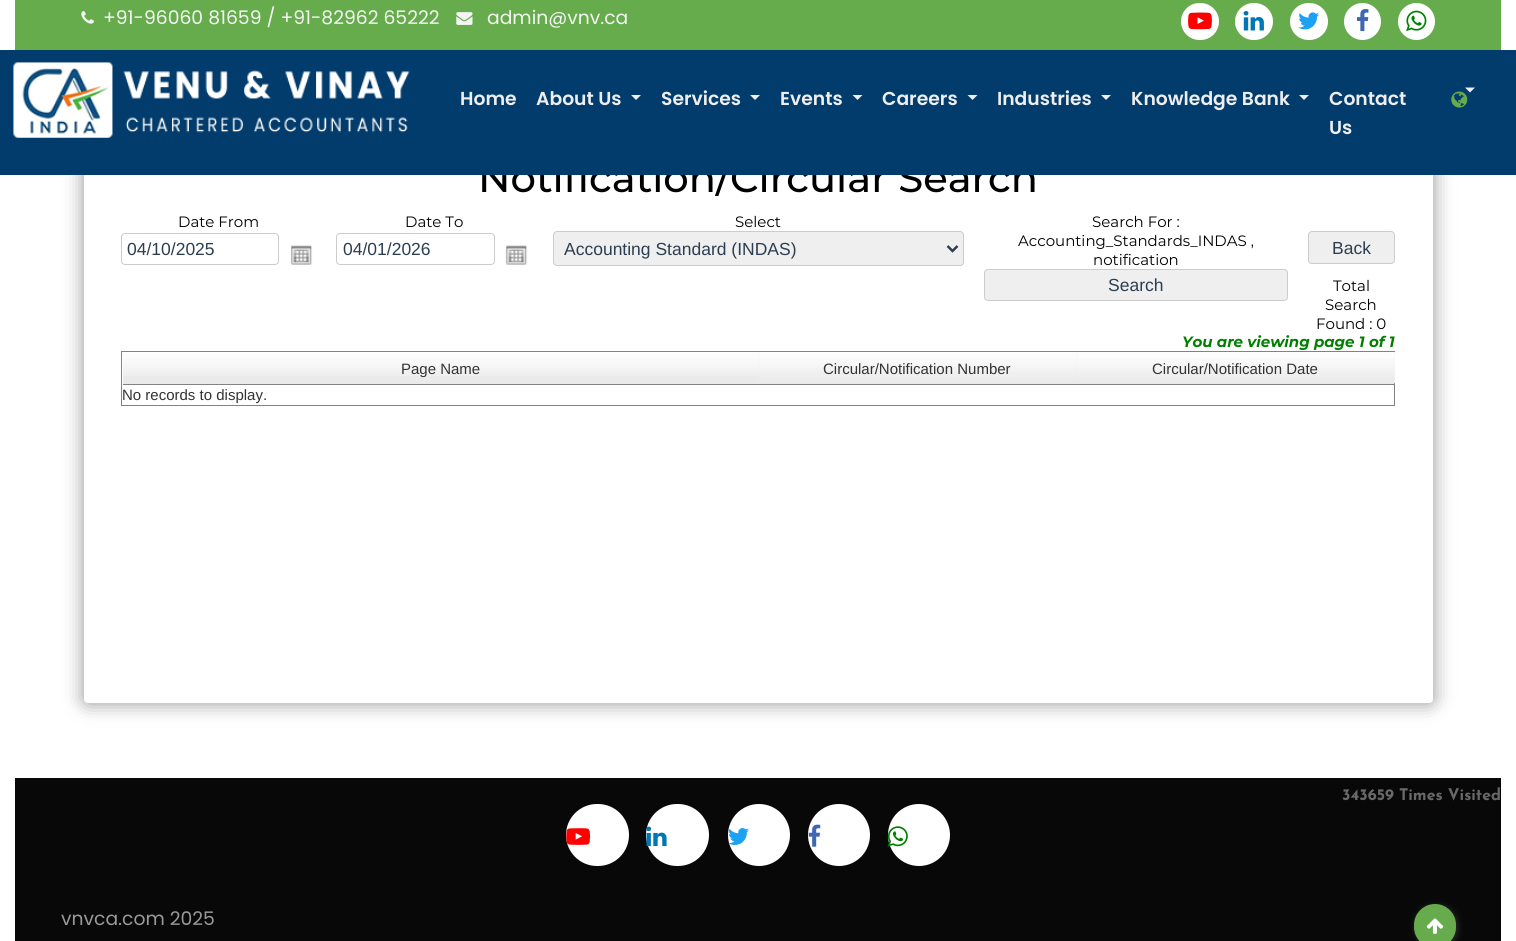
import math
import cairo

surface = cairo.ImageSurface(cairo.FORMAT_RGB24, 1516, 941)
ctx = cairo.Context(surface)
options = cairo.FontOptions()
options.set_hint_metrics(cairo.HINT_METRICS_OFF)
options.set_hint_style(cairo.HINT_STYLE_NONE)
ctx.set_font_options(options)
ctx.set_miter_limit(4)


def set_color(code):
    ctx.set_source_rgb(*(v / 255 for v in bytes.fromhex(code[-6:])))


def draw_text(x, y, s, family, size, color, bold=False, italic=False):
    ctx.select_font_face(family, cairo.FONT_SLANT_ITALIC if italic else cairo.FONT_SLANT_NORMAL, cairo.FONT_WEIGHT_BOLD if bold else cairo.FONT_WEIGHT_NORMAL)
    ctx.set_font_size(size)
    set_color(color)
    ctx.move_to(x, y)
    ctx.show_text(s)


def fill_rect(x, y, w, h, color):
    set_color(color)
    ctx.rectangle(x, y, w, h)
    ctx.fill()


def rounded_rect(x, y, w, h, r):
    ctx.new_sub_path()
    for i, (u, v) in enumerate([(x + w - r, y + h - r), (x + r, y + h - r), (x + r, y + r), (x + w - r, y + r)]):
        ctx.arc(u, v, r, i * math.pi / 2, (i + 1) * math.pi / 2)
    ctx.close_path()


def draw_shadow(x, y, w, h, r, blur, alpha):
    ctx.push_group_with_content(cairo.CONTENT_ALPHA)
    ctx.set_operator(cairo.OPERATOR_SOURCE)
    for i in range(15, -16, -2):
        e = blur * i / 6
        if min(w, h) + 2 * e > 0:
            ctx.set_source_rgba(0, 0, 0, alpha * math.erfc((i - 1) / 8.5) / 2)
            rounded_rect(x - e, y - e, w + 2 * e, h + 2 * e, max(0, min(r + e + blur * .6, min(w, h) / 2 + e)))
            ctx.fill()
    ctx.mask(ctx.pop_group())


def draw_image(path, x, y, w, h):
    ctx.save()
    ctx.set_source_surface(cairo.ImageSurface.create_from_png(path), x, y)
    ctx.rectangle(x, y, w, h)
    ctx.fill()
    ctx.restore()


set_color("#ffffff")
ctx.paint()
fill_rect(15, 0, 1486, 50, "#66ac4c")
draw_image("assets/img1.png", 81, 11, 13, 13)
draw_text(103, 24, "+91-96060 81659 / +91-82962 65222", "Poppins", 18.75, "#f4f4f4")
draw_image("assets/img2.png", 456, 12, 17, 13)
draw_text(487, 24, "admin@vnv.ca", "Poppins", 18.75, "#f4f4f4")
set_color("#ffffff")
rounded_rect(1181, 3, 38, 37, 18.5)
ctx.fill()
draw_image("assets/img3.png", 1188, 12, 24, 18)
rounded_rect(1235, 3, 38, 37, 18.5)
ctx.fill()
draw_image("assets/img4.png", 1243, 11, 21, 20)
rounded_rect(1290, 3, 38, 37, 18.5)
ctx.fill()
draw_image("assets/img5.png", 1298, 12, 21, 18)
ctx.arc(1362.5, 21.5, 18.5, 0, 2 * math.pi)
ctx.fill()
draw_image("assets/img6.png", 1356, 9, 13, 23)
ctx.arc(1416.5, 21.5, 18.5, 0, 2 * math.pi)
ctx.fill()
draw_image("assets/img7.png", 1406, 10, 21, 22)
set_color("#000000")
draw_shadow(83, 83, 1351, 621, 5, 9.5, 0.4)
set_color("#ffffff")
rounded_rect(84, 84, 1349, 619, 4)
ctx.fill()
draw_text(478, 192, "Notification/Circular Search", "Montserrat Medium", 40, "#000000")
fill_rect(0, 50, 1516, 125, "#023c6c")
draw_image("assets/img8.png", 13, 62, 397, 76)
draw_text(460, 105, "Home", "Poppins SemiBold", 18.75, "#eeeeee")
draw_text(536, 105, "About Us", "Poppins SemiBold", 18.75, "#eeeeee")
ctx.new_path()
ctx.move_to(631, 95)
ctx.line_to(641, 95)
ctx.line_to(636, 100)
ctx.close_path()
ctx.fill()
draw_text(661, 105, "Services", "Poppins SemiBold", 18.75, "#eeeeee")
ctx.new_path()
ctx.move_to(750, 95)
ctx.line_to(760, 95)
ctx.line_to(755, 100)
ctx.close_path()
ctx.fill()
draw_text(780, 105, "Events", "Poppins SemiBold", 18.75, "#eeeeee")
ctx.new_path()
ctx.move_to(852.5, 95)
ctx.line_to(862.5, 95)
ctx.line_to(857.5, 100)
ctx.close_path()
ctx.fill()
draw_text(882, 105, "Careers", "Poppins SemiBold", 18.75, "#eeeeee")
ctx.new_path()
ctx.move_to(967.5, 95)
ctx.line_to(977.5, 95)
ctx.line_to(972.5, 100)
ctx.close_path()
ctx.fill()
draw_text(997, 105, "Industries", "Poppins SemiBold", 18.75, "#eeeeee")
ctx.new_path()
ctx.move_to(1101, 95)
ctx.line_to(1111, 95)
ctx.line_to(1106, 100)
ctx.close_path()
ctx.fill()
draw_text(1131, 105, "Knowledge Bank", "Poppins SemiBold", 18.75, "#eeeeee")
ctx.new_path()
ctx.move_to(1299, 95)
ctx.line_to(1309, 95)
ctx.line_to(1304, 100)
ctx.close_path()
ctx.fill()
draw_text(1329, 105, "Contact", "Poppins SemiBold", 18.75, "#eeeeee")
draw_text(1329, 134, "Us", "Poppins SemiBold", 18.75, "#eeeeee")
draw_image("assets/img9.png", 1451, 91, 17, 17)
ctx.new_path()
ctx.move_to(1465, 87.5)
ctx.line_to(1475, 87.5)
ctx.line_to(1470, 92.5)
ctx.close_path()
ctx.fill()
draw_text(178, 227, "Date From", "Montserrat", 15, "#000000")
rounded_rect(121.5, 233.5, 157, 31, 3.5)
set_color("#cccccc")
ctx.set_line_width(1)
ctx.stroke()
draw_text(127, 255, "04/10/2025", "Liberation Sans", 17.5, "#2c3e50")
draw_image("assets/img10.png", 290, 245, 23, 20)
draw_text(405, 227, "Date To", "Montserrat", 15, "#000000")
rounded_rect(336.5, 233.5, 158, 31, 3.5)
set_color("#cccccc")
ctx.stroke()
draw_text(343, 255, "04/01/2026", "Liberation Sans", 17.5, "#2c3e50")
draw_image("assets/img10.png", 505, 245, 23, 20)
draw_text(735, 227, "Select", "Montserrat", 15, "#000000")
set_color("#efefef")
rounded_rect(553.5, 231.5, 410, 34, 3.5)
ctx.fill_preserve()
set_color("#cccccc")
ctx.stroke()
ctx.new_path()
ctx.move_to(947.5, 246)
ctx.line_to(952.5, 251)
ctx.line_to(957.5, 246)
set_color("#2c3e50")
ctx.set_line_width(2.5)
ctx.stroke()
draw_text(564, 255, "Accounting Standard (INDAS)", "Liberation Sans", 17.5, "#2c3e50")
draw_text(1092, 227, "Search For :", "Montserrat", 15, "#000000")
draw_text(1018, 246, "Accounting_Standards_INDAS ,", "Montserrat", 15, "#000000")
draw_text(1093, 265, "notification", "Montserrat", 15, "#000000")
set_color("#efefef")
rounded_rect(984.5, 269.5, 303, 31, 3.5)
ctx.fill_preserve()
set_color("#cccccc")
ctx.set_line_width(1)
ctx.stroke()
draw_text(1108, 291, "Search", "Liberation Sans", 17.5, "#2c3e50")
set_color("#efefef")
rounded_rect(1308.5, 231.5, 86, 32, 3.5)
ctx.fill_preserve()
set_color("#cccccc")
ctx.stroke()
draw_text(1332, 254, "Back", "Liberation Sans", 17.5, "#2c3e50")
draw_text(1333, 291, "Total", "Montserrat", 15, "#000000")
draw_text(1325, 310, "Search", "Montserrat", 15, "#000000")
draw_text(1316, 329, "Found : 0", "Montserrat", 15, "#000000")
draw_text(1182, 347, "You are viewing page 1 of 1", "Montserrat", 15, "#008000", bold=True, italic=True)
ctx.rectangle(121.5, 351.5, 1273, 54)
set_color("#828282")
ctx.stroke()
fill_rect(123, 353, 636, 31, "#eaeaea")
draw_image("assets/img11.png", 123, 353, 636, 23)
fill_rect(123, 384, 1271, 1, "#828282")
draw_text(401, 374, "Page Name", "Liberation Sans", 15, "#333333")
fill_rect(759, 383, 317, 1, "#eaeaea")
draw_image("assets/img12.png", 759, 353, 317, 30)
draw_text(823, 374, "Circular/Notification Number", "Liberation Sans", 15, "#333333")
fill_rect(1076, 353, 318, 31, "#eaeaea")
draw_image("assets/img13.png", 1076, 352, 319, 32)
draw_text(1152, 374, "Circular/Notification Date", "Liberation Sans", 15, "#333333")
draw_text(122, 400, "No records to display.", "Liberation Sans", 15, "#333333")
fill_rect(15, 778, 1486, 163, "#080808")
draw_text(1342, 800, "343659 Times Visited", "Josefin Sans", 16, "#696969", bold=True)
set_color("#ffffff")
rounded_rect(566, 804, 63, 62, 31)
ctx.fill()
draw_image("assets/img14.png", 566, 828, 24, 17)
rounded_rect(646, 804, 63, 62, 31)
ctx.fill()
draw_image("assets/img15.png", 646, 826, 21, 21)
ctx.arc(759, 835, 31, 0, 2 * math.pi)
ctx.fill()
draw_image("assets/img16.png", 728, 828, 21, 17)
ctx.arc(839, 835, 31, 0, 2 * math.pi)
ctx.fill()
draw_image("assets/img17.png", 808, 824, 13, 23)
ctx.arc(919, 835, 31, 0, 2 * math.pi)
ctx.fill()
draw_image("assets/img18.png", 887, 826, 21, 21)
draw_text(61, 925, "vnvca.com 2025", "Poppins", 18.75, "#999999")
set_color("#2c2a2a")
draw_shadow(1415, 905, 43, 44, 21.5, 3, 1)
set_color("#66ac4c")
rounded_rect(1414, 904, 42, 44, 21)
ctx.fill()
draw_image("assets/img19.png", 1426, 918, 18, 16)
surface.write_to_png("output.png")
